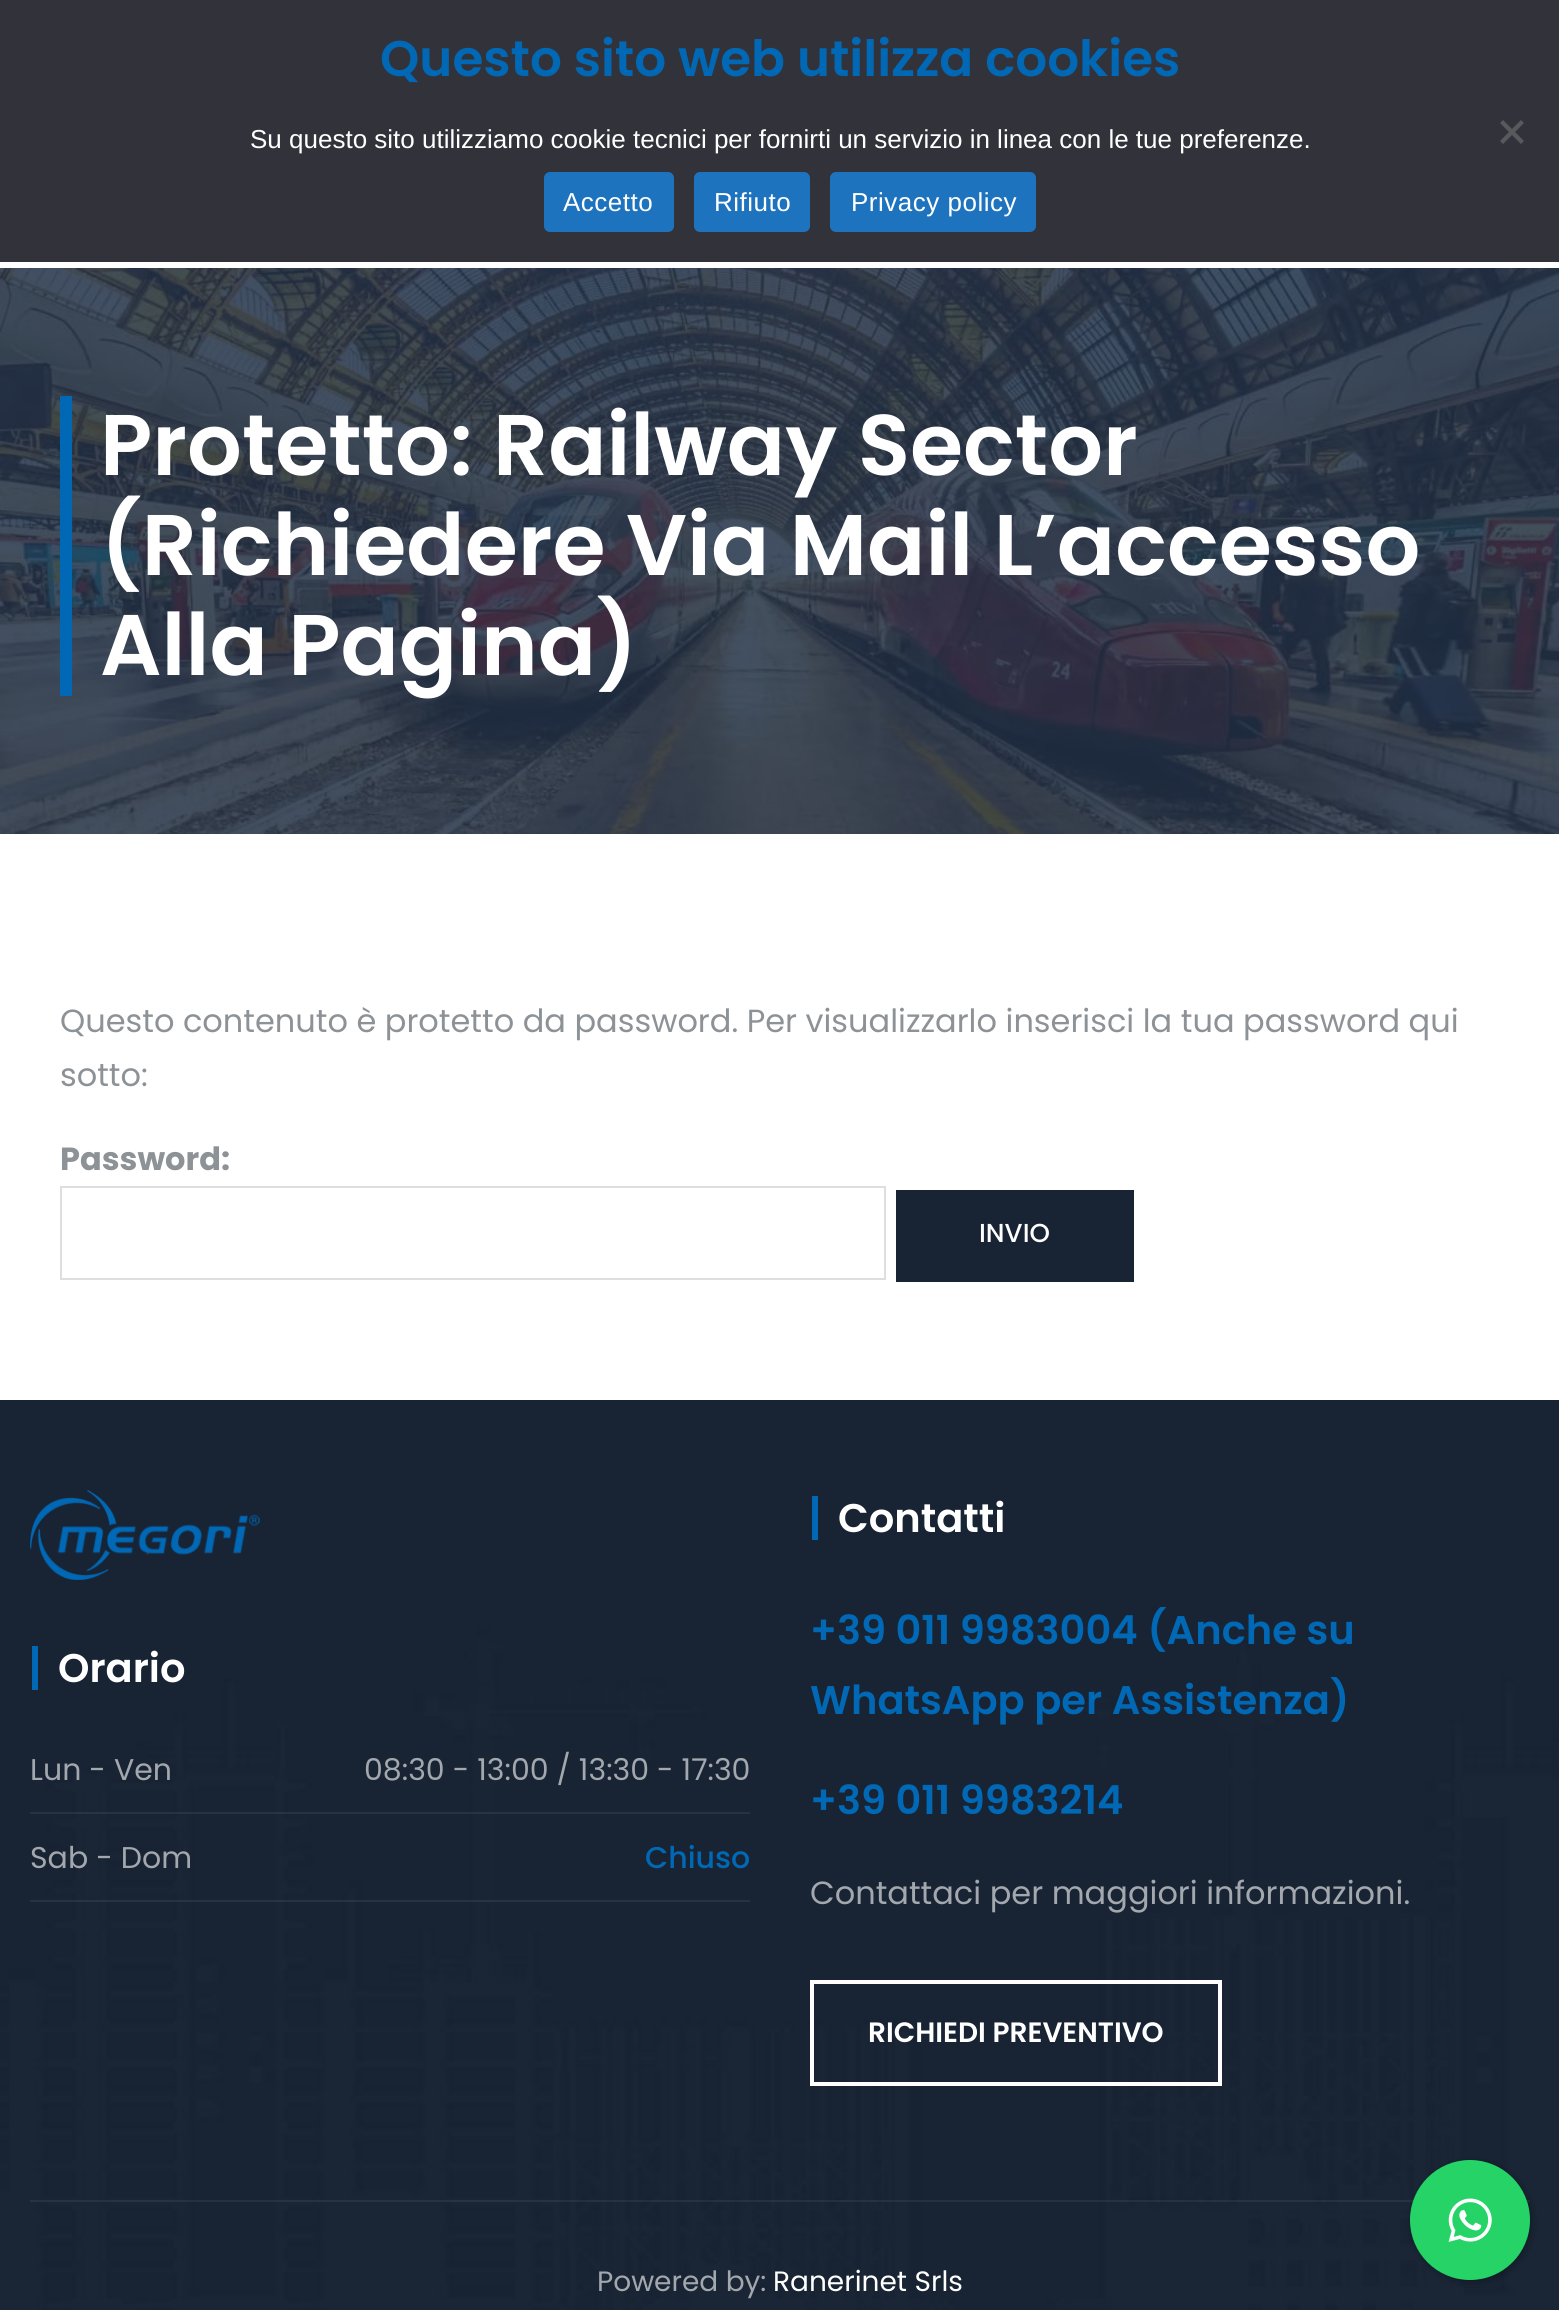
import math
import cairo

surface = cairo.ImageSurface(cairo.FORMAT_RGB24, 1559, 2310)
ctx = cairo.Context(surface)
options = cairo.FontOptions()
options.set_hint_metrics(cairo.HINT_METRICS_OFF)
options.set_hint_style(cairo.HINT_STYLE_NONE)
ctx.set_font_options(options)
ctx.set_miter_limit(4)


def set_color(code):
    ctx.set_source_rgb(*(v / 255 for v in bytes.fromhex(code[-6:])))


def draw_text(x, y, s, family, size, color, bold=False, italic=False):
    ctx.select_font_face(family, cairo.FONT_SLANT_ITALIC if italic else cairo.FONT_SLANT_NORMAL, cairo.FONT_WEIGHT_BOLD if bold else cairo.FONT_WEIGHT_NORMAL)
    ctx.set_font_size(size)
    set_color(color)
    ctx.move_to(x, y)
    ctx.show_text(s)


def draw_spaced(x, y, s, letter, word):
    ctx.move_to(x, y)
    for ch in s:
        ctx.show_text(ch)
        ctx.rel_move_to(letter + word * (ch == ' '), 0)


def fill_rect(x, y, w, h, color):
    set_color(color)
    ctx.rectangle(x, y, w, h)
    ctx.fill()


def rounded_rect(x, y, w, h, r):
    ctx.new_sub_path()
    for i, (u, v) in enumerate([(x + w - r, y + h - r), (x + r, y + h - r), (x + r, y + r), (x + w - r, y + r)]):
        ctx.arc(u, v, r, i * math.pi / 2, (i + 1) * math.pi / 2)
    ctx.close_path()


def draw_shadow(x, y, w, h, r, blur, alpha):
    ctx.push_group_with_content(cairo.CONTENT_ALPHA)
    ctx.set_operator(cairo.OPERATOR_SOURCE)
    for i in range(15, -16, -2):
        e = blur * i / 6
        if min(w, h) + 2 * e > 0:
            ctx.set_source_rgba(0, 0, 0, alpha * math.erfc((i - 1) / 8.5) / 2)
            rounded_rect(x - e, y - e, w + 2 * e, h + 2 * e, max(0, min(r + e + blur * .6, min(w, h) / 2 + e)))
            ctx.fill()
    ctx.mask(ctx.pop_group())


def draw_image(path, x, y, w, h):
    ctx.save()
    ctx.set_source_surface(cairo.ImageSurface.create_from_png(path), x, y)
    ctx.rectangle(x, y, w, h)
    ctx.fill()
    ctx.restore()


set_color("#ffffff")
ctx.paint()
fill_rect(0, 0, 1559, 262, "#32323a")
draw_text(380, 76, "Questo sito web utilizza cookies", "Poppins SemiBold", 50, "#0068b4")
draw_text(250, 148, "Su questo sito utilizziamo cookie tecnici per fornirti un servizio in linea con le tue preferenze.", "Liberation Sans", 26, "#ffffff")
set_color("#59595d")
ctx.new_path()
ctx.move_to(1521, 120)
ctx.line_to(1524, 123)
ctx.line_to(1503, 144)
ctx.line_to(1500, 141)
ctx.close_path()
ctx.fill()
ctx.new_path()
ctx.move_to(1500, 123)
ctx.line_to(1503, 120)
ctx.line_to(1524, 141)
ctx.line_to(1521, 144)
ctx.close_path()
ctx.fill()
set_color("#1e73be")
rounded_rect(544, 172, 130, 60, 6)
ctx.fill()
set_color("#ffffff")
draw_spaced(563, 211, "Accetto", 0.5, 0)
set_color("#1e73be")
rounded_rect(694, 172, 116, 60, 6)
ctx.fill()
set_color("#ffffff")
draw_spaced(714, 211, "Rifiuto", 0.5, 0)
set_color("#1e73be")
rounded_rect(830, 172, 206, 60, 6)
ctx.fill()
set_color("#ffffff")
draw_spaced(851, 211, "Privacy policy", 0.5, 0)
draw_image("assets/img1.png", 0, 268, 1559, 566)
fill_rect(60, 396, 12, 300, "#0068b4")
draw_text(100, 475, "Protetto: Railway Sector", "Poppins SemiBold", 86, "#ffffff")
draw_text(100, 575, "(Richiedere Via Mail L’accesso", "Poppins SemiBold", 86, "#ffffff")
draw_text(100, 675, "Alla Pagina)", "Poppins SemiBold", 86, "#ffffff")
draw_text(60, 1032, "Questo contenuto è protetto da password. Per visualizzarlo inserisci la tua password qui", "Poppins", 32, "#8d9297")
draw_text(60, 1086, "sotto:", "Poppins", 32, "#8d9297")
draw_text(60, 1170, "Password:", "Poppins", 32, "#8d9297", bold=True)
ctx.rectangle(61, 1187, 824, 92)
set_color("#dedede")
ctx.stroke()
fill_rect(896, 1190, 238, 92, "#182333")
draw_text(979, 1242, "INVIO", "Poppins Medium", 26, "#ffffff")
draw_image("assets/img2.png", 0, 1400, 1559, 910)
ctx.set_source_rgba(1, 1, 1, 0.06)
ctx.rectangle(30, 2200, 1500, 2)
ctx.fill()
draw_image("assets/img3.png", 30, 1490, 230, 90)
fill_rect(32, 1646, 6, 44, "#0068b4")
draw_text(58, 1682, "Orario", "Poppins SemiBold", 40, "#ffffff")
ctx.set_source_rgba(1, 1, 1, 0.07)
ctx.rectangle(30, 1812, 720, 2)
ctx.fill()
draw_text(30, 1780, "Lun - Ven", "Poppins", 30, "#a3a7ae")
draw_text(364, 1780, "08:30 - 13:00 / 13:30 - 17:30", "Poppins", 30, "#a3a7ae")
ctx.set_source_rgba(1, 1, 1, 0.07)
ctx.rectangle(30, 1900, 720, 2)
ctx.fill()
draw_text(30, 1868, "Sab - Dom", "Poppins", 30, "#a3a7ae")
draw_text(645, 1868, "Chiuso", "Poppins Medium", 30, "#0068b4")
fill_rect(812, 1496, 6, 44, "#0068b4")
draw_text(838, 1532, "Contatti", "Poppins SemiBold", 40, "#ffffff")
draw_text(810, 1644, "+39 011 9983004 (Anche su", "Poppins SemiBold", 40, "#0068b4")
draw_text(810, 1714, "WhatsApp per Assistenza)", "Poppins SemiBold", 40, "#0068b4")
draw_text(810, 1814, "+39 011 9983214", "Poppins SemiBold", 40, "#0068b4")
draw_text(810, 1904, "Contattaci per maggiori informazioni.", "Poppins", 32, "#a3a7ae")
ctx.rectangle(812, 1982, 408, 102)
set_color("#ffffff")
ctx.set_line_width(4)
ctx.stroke()
draw_text(868, 2042, "RICHIEDI PREVENTIVO", "Poppins SemiBold", 28, "#ffffff")
draw_text(597, 2291, "Powered by:", "Poppins", 28, "#a3a7ae")
draw_text(773, 2291, "Ranerinet Srls", "Poppins", 28, "#ffffff")
set_color("#000000")
draw_shadow(1412, 2162, 120, 120, 60, 4, 0.3)
set_color("#25d366")
ctx.arc(1470, 2220, 60, 0, 2 * math.pi)
ctx.fill()
draw_image("assets/img4.png", 1448, 2198, 44, 44)
surface.write_to_png("output.png")
